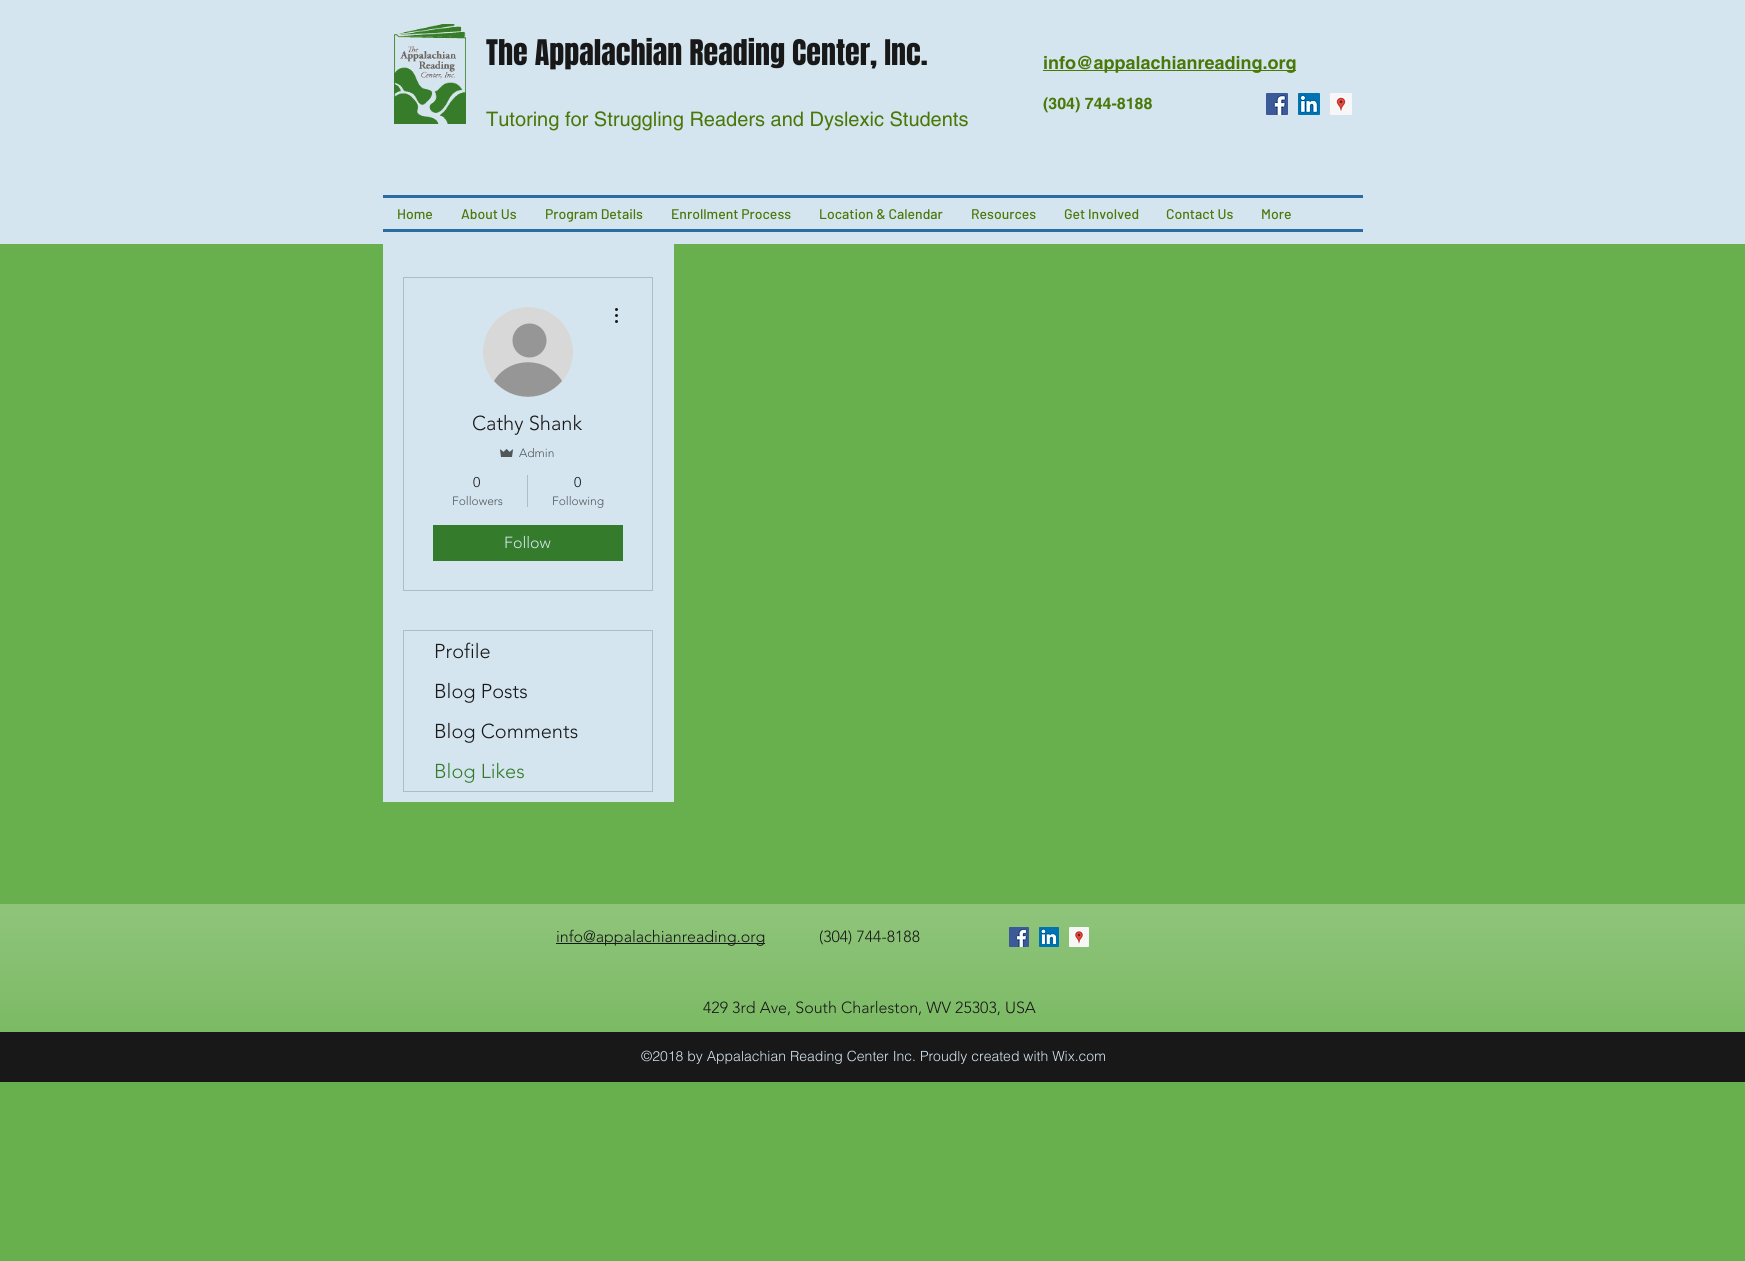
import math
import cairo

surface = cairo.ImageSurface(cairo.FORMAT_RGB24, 1745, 1261)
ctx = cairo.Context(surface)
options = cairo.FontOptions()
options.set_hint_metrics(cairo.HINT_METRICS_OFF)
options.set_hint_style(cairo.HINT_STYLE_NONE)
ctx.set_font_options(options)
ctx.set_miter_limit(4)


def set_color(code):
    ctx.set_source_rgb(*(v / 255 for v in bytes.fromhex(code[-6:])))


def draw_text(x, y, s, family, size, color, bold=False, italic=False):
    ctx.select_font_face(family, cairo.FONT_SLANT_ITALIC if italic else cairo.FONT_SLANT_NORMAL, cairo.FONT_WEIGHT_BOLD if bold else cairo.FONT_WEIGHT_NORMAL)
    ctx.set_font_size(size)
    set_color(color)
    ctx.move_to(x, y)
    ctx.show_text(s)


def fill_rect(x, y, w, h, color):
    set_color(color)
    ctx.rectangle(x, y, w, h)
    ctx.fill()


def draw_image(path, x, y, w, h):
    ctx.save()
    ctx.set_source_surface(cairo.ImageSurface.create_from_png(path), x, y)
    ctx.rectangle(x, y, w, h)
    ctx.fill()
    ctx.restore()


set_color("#68b04d")
ctx.paint()
fill_rect(0, 0, 1745, 244, "#d5e5f0")
draw_image("assets/img1.png", 394, 24, 72, 100)
draw_text(486, 65, "The Appalachian Reading Center, Inc.", "Anton", 30, "#181818")
fill_rect(1043, 70, 253, 1, "#497807")
draw_text(1043, 69, "info@appalachianreading.org", "helvetica", 18, "#497807", bold=True)
draw_text(1043, 109, "(304) 744-8188", "helvetica", 16, "#497807", bold=True)
draw_image("assets/img2.png", 1266, 93, 22, 22)
draw_image("assets/img3.png", 1298, 93, 22, 22)
draw_image("assets/img4.png", 1330, 93, 22, 22)
draw_text(486, 126, "Tutoring for Struggling Readers and Dyslexic Students", "helvetica", 20, "#497807")
fill_rect(383, 195, 980, 3, "#2b6ca3")
fill_rect(383, 229, 980, 3, "#2b6ca3")
draw_text(397, 219, "Home", "Barlow Medium", 14, "#497807")
draw_text(461, 219, "About Us", "Barlow Medium", 14, "#497807")
draw_text(545, 219, "Program Details", "Barlow Medium", 14, "#497807")
draw_text(671, 219, "Enrollment Process", "Barlow Medium", 14, "#497807")
draw_text(819, 219, "Location & Calendar", "Barlow Medium", 14, "#497807")
draw_text(971, 219, "Resources", "Barlow Medium", 14, "#497807")
draw_text(1064, 219, "Get Involved", "Barlow Medium", 14, "#497807")
draw_text(1166, 219, "Contact Us", "Barlow Medium", 14, "#497807")
draw_text(1261, 219, "More", "Barlow Medium", 14, "#497807")
fill_rect(383, 244, 291, 558, "#d5e5f0")
ctx.rectangle(403.5, 277.5, 249, 313)
set_color("#afbcc5")
ctx.set_line_width(1)
ctx.stroke()
set_color("#d8d8d8")
ctx.arc(528, 352, 45, 0, 2 * math.pi)
ctx.fill()
set_color("#969696")
ctx.arc(529.5, 340.5, 17, 0, 2 * math.pi)
ctx.fill()
ctx.new_path()
ctx.move_to(562, 381)
ctx.curve_to(544, 402, 512, 402, 494, 381)
ctx.curve_to(509, 356, 547, 356, 562, 381)
ctx.close_path()
ctx.fill()
draw_image("assets/img5.png", 615, 308, 3, 15)
draw_text(472, 430, "Cathy Shank", "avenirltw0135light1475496 Light", 20, "#181818")
draw_image("assets/img6.png", 500, 449, 13, 8)
draw_text(519, 457, "Admin", "avenirltw0135light1475496 Light", 12, "#515659")
draw_text(473, 487, "0", "avenirltw0135light1475496 Light", 14, "#181818")
draw_text(452, 505, "Followers", "avenirltw0135light1475496 Light", 12, "#515659")
fill_rect(527, 475, 1, 32, "#afbcc5")
draw_text(574, 487, "0", "avenirltw0135light1475496 Light", 14, "#181818")
draw_text(552, 505, "Following", "avenirltw0135light1475496 Light", 12, "#515659")
fill_rect(433, 525, 190, 36, "#347c2c")
draw_text(504, 548, "Follow", "avenirltw0135light1475496 Light", 16, "#d5e5f0")
ctx.rectangle(403.5, 630.5, 249, 161)
set_color("#afbcc5")
ctx.stroke()
draw_text(434, 658, "Profile", "avenirltw0135light1475496 Light", 20, "#181818")
draw_text(434, 698, "Blog Posts", "avenirltw0135light1475496 Light", 20, "#181818")
draw_text(434, 738, "Blog Comments", "avenirltw0135light1475496 Light", 20, "#181818")
draw_text(434, 778, "Blog Likes", "avenirltw0135light1475496 Light", 20, "#347c2c")
draw_image("assets/img7.png", 0, 904, 1745, 128)
fill_rect(556, 943, 209, 1, "#181818")
draw_text(556, 942, "info@appalachianreading.org", "avenirltw0135light1475496 Light", 16, "#181818")
draw_text(819, 942, "(304) 744-8188", "avenirltw0135light1475496 Light", 16, "#181818")
draw_image("assets/img8.png", 1009, 927, 20, 20)
draw_image("assets/img9.png", 1039, 927, 20, 20)
draw_image("assets/img10.png", 1069, 927, 20, 20)
draw_text(703, 1013, "429 3rd Ave, South Charleston, WV 25303, USA", "avenirltw0135light1475496 Light", 16, "#181818")
fill_rect(0, 1032, 1745, 50, "#181818")
draw_text(641, 1061, "©2018 by Appalachian Reading Center Inc. Proudly created with Wix.com", "helvetica Light", 14, "#d5e5f0")
surface.write_to_png("output.png")
